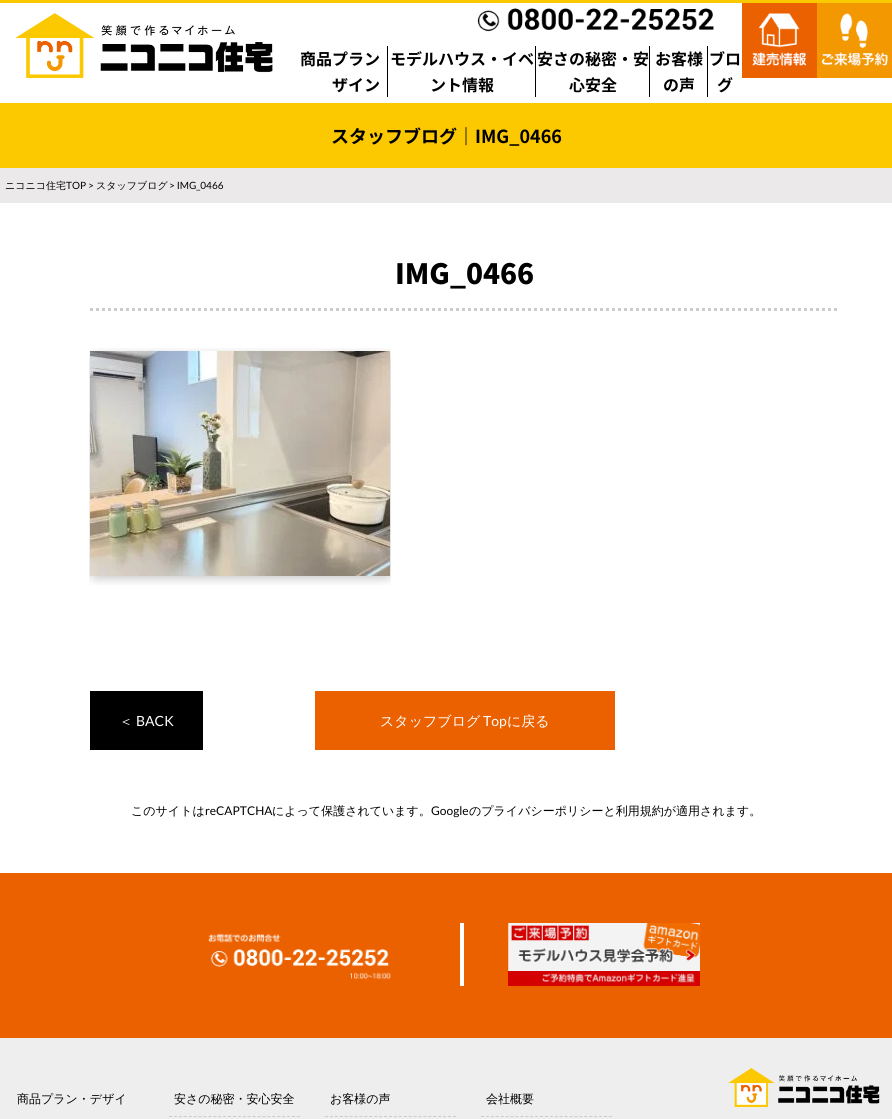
import math
import cairo

surface = cairo.ImageSurface(cairo.FORMAT_RGB24, 892, 1119)
ctx = cairo.Context(surface)
options = cairo.FontOptions()
options.set_hint_metrics(cairo.HINT_METRICS_OFF)
options.set_hint_style(cairo.HINT_STYLE_NONE)
ctx.set_font_options(options)
ctx.set_miter_limit(4)


def set_color(code):
    ctx.set_source_rgb(*(v / 255 for v in bytes.fromhex(code[-6:])))


def draw_text(x, y, s, family, size, color, bold=False, italic=False):
    ctx.select_font_face(family, cairo.FONT_SLANT_ITALIC if italic else cairo.FONT_SLANT_NORMAL, cairo.FONT_WEIGHT_BOLD if bold else cairo.FONT_WEIGHT_NORMAL)
    ctx.set_font_size(size)
    set_color(color)
    ctx.move_to(x, y)
    ctx.show_text(s)


def fill_rect(x, y, w, h, color):
    set_color(color)
    ctx.rectangle(x, y, w, h)
    ctx.fill()


def draw_image(path, x, y, w, h):
    ctx.save()
    ctx.set_source_surface(cairo.ImageSurface.create_from_png(path), x, y)
    ctx.rectangle(x, y, w, h)
    ctx.fill()
    ctx.restore()


set_color("#ffffff")
ctx.paint()
fill_rect(0, 0, 892, 3, "#fcc800")
draw_image("assets/img1.png", 15, 13, 258, 65)
draw_image("assets/img2.png", 477, 8, 237, 24)
draw_text(300, 65, "商品プラン", "Noto Sans JP", 16, "#000000", bold=True)
draw_text(332, 91, "ザイン", "Noto Sans JP", 16, "#000000", bold=True)
fill_rect(387, 46, 1, 51, "#000000")
draw_text(390, 65, "モデルハウス・イベ", "Noto Sans JP", 16, "#000000", bold=True)
draw_text(430, 91, "ント情報", "Noto Sans JP", 16, "#000000", bold=True)
fill_rect(535, 46, 1, 51, "#000000")
draw_text(537, 65, "安さの秘密・安", "Noto Sans JP", 16, "#000000", bold=True)
draw_text(569, 91, "心安全", "Noto Sans JP", 16, "#000000", bold=True)
fill_rect(649, 46, 1, 51, "#000000")
draw_text(655, 65, "お客様", "Noto Sans JP", 16, "#000000", bold=True)
draw_text(663, 91, "の声", "Noto Sans JP", 16, "#000000", bold=True)
fill_rect(707, 46, 1, 51, "#000000")
draw_text(709, 65, "ブロ", "Noto Sans JP", 16, "#000000", bold=True)
draw_text(717, 91, "グ", "Noto Sans JP", 16, "#000000", bold=True)
draw_image("assets/img3.png", 742, 3, 75, 75)
draw_image("assets/img4.png", 817, 3, 75, 75)
fill_rect(0, 103, 892, 65, "#fcc800")
draw_text(331, 143, "スタッフブログ｜IMG_0466", "Noto Sans JP", 18, "#000000", bold=True)
fill_rect(0, 168, 892, 35, "#ebe9e9")
draw_text(5, 189, "ニコニコ住宅", "WenQuanYi Zen Hei Medium", 10, "#000000")
draw_text(66, 189, "TOP >", "Lato", 10, "#000000")
draw_text(96, 189, "スタッフブログ", "WenQuanYi Zen Hei Medium", 10, "#000000")
draw_text(169, 189, "> IMG_0466", "Lato", 10, "#000000")
ctx.new_path()
ctx.move_to(90, 309.5)
ctx.line_to(840, 309.5)
set_color("#cccccc")
ctx.set_line_width(3)
ctx.set_dash([3, 3])
ctx.stroke()
draw_text(395, 284, "IMG_0466", "Noto Sans JP Black", 28, "#000000")
draw_image("assets/img5.png", 89, 348, 302, 237)
fill_rect(90, 691, 113, 59, "#000000")
draw_text(119, 726, "＜", "WenQuanYi Zen Hei Medium", 14, "#ffffff")
draw_text(136, 726, "BACK", "Lato", 14, "#ffffff")
fill_rect(315, 691, 300, 59, "#eb6100")
draw_text(380, 726, "スタッフブログ", "WenQuanYi Zen Hei Medium", 14, "#ffffff")
draw_text(483, 726, "Top", "Lato", 14, "#ffffff")
draw_text(507, 726, "に戻る", "WenQuanYi Zen Hei Medium", 14, "#ffffff")
draw_text(131, 815, "このサイトは", "WenQuanYi Zen Hei Medium", 12, "#000000")
draw_text(205, 815, "reCAPTCHA", "Lato", 12, "#000000")
draw_text(272, 815, "によって保護されています。", "WenQuanYi Zen Hei Medium", 12, "#000000")
draw_text(431, 815, "Google", "Lato", 12, "#000000")
draw_text(469, 815, "のプライバシーポリシーと利用規約が適用されます。", "WenQuanYi Zen Hei Medium", 12, "#000000")
fill_rect(0, 873, 892, 165, "#eb6100")
draw_image("assets/img6.png", 208, 933, 183, 47)
fill_rect(460, 923, 4, 63, "#ffffff")
draw_image("assets/img7.png", 508, 923, 192, 63)
fill_rect(0, 1038, 892, 81, "#eeeeee")
draw_text(17, 1103, "商品プラン・デザイ", "WenQuanYi Zen Hei Medium", 12, "#000000")
ctx.new_path()
ctx.move_to(169, 1116.5)
ctx.line_to(300, 1116.5)
set_color("#cccccc")
ctx.set_line_width(1)
ctx.set_dash([3, 1.92])
ctx.stroke()
draw_text(174, 1103, "安さの秘密・安心安全", "WenQuanYi Zen Hei Medium", 12, "#000000")
ctx.new_path()
ctx.move_to(325, 1116.5)
ctx.line_to(456, 1116.5)
set_color("#cccccc")
ctx.stroke()
draw_text(330, 1103, "お客様の声", "WenQuanYi Zen Hei Medium", 12, "#000000")
ctx.new_path()
ctx.move_to(481, 1116.5)
ctx.line_to(612, 1116.5)
set_color("#cccccc")
ctx.stroke()
draw_text(486, 1103, "会社概要", "WenQuanYi Zen Hei Medium", 12, "#000000")
draw_image("assets/img8.png", 728, 1068, 152, 39)
surface.write_to_png("output.png")
